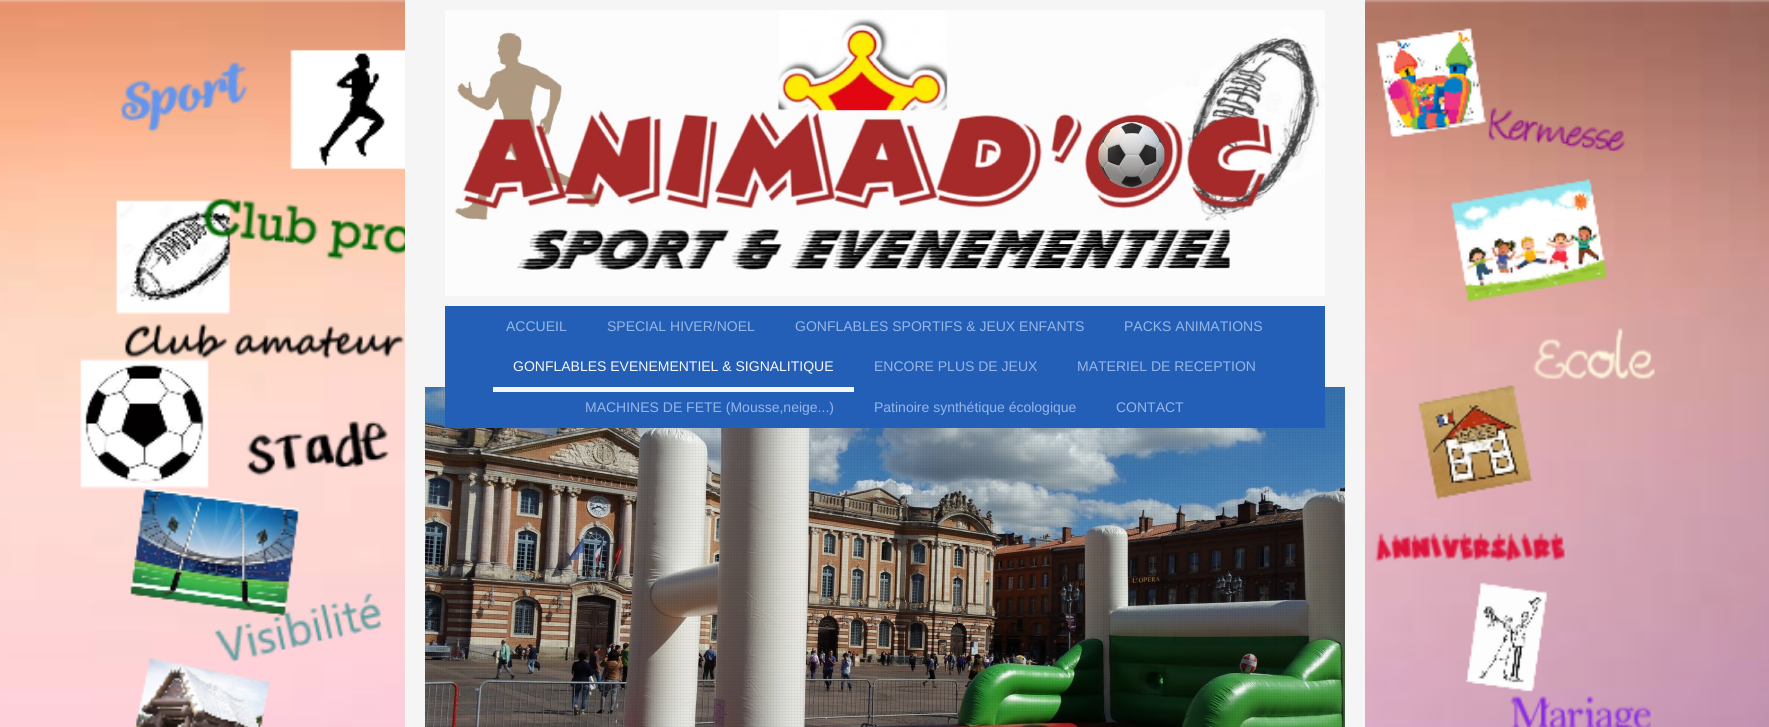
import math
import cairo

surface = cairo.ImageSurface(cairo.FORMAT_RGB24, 1769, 727)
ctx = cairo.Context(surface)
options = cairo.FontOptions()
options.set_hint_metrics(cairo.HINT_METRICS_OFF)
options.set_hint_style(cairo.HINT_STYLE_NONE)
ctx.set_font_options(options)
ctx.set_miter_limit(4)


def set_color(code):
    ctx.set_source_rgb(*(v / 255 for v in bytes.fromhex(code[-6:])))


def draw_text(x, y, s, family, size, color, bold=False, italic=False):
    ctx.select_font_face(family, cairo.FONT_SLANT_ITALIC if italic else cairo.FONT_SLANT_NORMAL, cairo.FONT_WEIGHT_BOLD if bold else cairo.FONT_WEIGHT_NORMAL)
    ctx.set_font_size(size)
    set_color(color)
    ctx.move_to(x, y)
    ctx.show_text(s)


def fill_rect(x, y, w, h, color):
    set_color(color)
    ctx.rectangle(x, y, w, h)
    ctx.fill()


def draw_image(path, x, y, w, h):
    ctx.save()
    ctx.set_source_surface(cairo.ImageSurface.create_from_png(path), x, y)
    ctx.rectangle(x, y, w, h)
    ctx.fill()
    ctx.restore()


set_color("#ffffff")
ctx.paint()
draw_image("assets/img1.png", 0, 0, 1769, 727)
fill_rect(405, 0, 960, 727, "#f5f5f5")
draw_image("assets/img2.png", 445, 10, 880, 286)
draw_image("assets/img3.png", 425, 387, 920, 340)
draw_image("assets/img4.png", 425, 387, 920, 340)
fill_rect(445, 306, 880, 122, "#245fb7")
draw_text(506, 331, "ACCUEIL", "Liberation Sans", 14, "#94b6e7")
draw_text(607, 331, "SPECIAL HIVER/NOEL", "Liberation Sans", 14, "#94b6e7")
draw_text(795, 331, "GONFLABLES SPORTIFS & JEUX ENFANTS", "Liberation Sans", 14, "#94b6e7")
draw_text(1124, 331, "PACKS ANIMATIONS", "Liberation Sans", 14, "#94b6e7")
fill_rect(493, 387, 361, 5, "#f5f5f5")
draw_text(513, 371, "GONFLABLES EVENEMENTIEL & SIGNALITIQUE", "Liberation Sans", 14, "#f5f5f5")
draw_text(874, 371, "ENCORE PLUS DE JEUX", "Liberation Sans", 14, "#94b6e7")
draw_text(1077, 371, "MATERIEL DE RECEPTION", "Liberation Sans", 14, "#94b6e7")
draw_text(585, 412, "MACHINES DE FETE (Mousse,neige...)", "Liberation Sans", 14, "#94b6e7")
draw_text(874, 412, "Patinoire synthétique écologique", "Liberation Sans", 14, "#94b6e7")
draw_text(1116, 412, "CONTACT", "Liberation Sans", 14, "#94b6e7")
surface.write_to_png("output.png")
